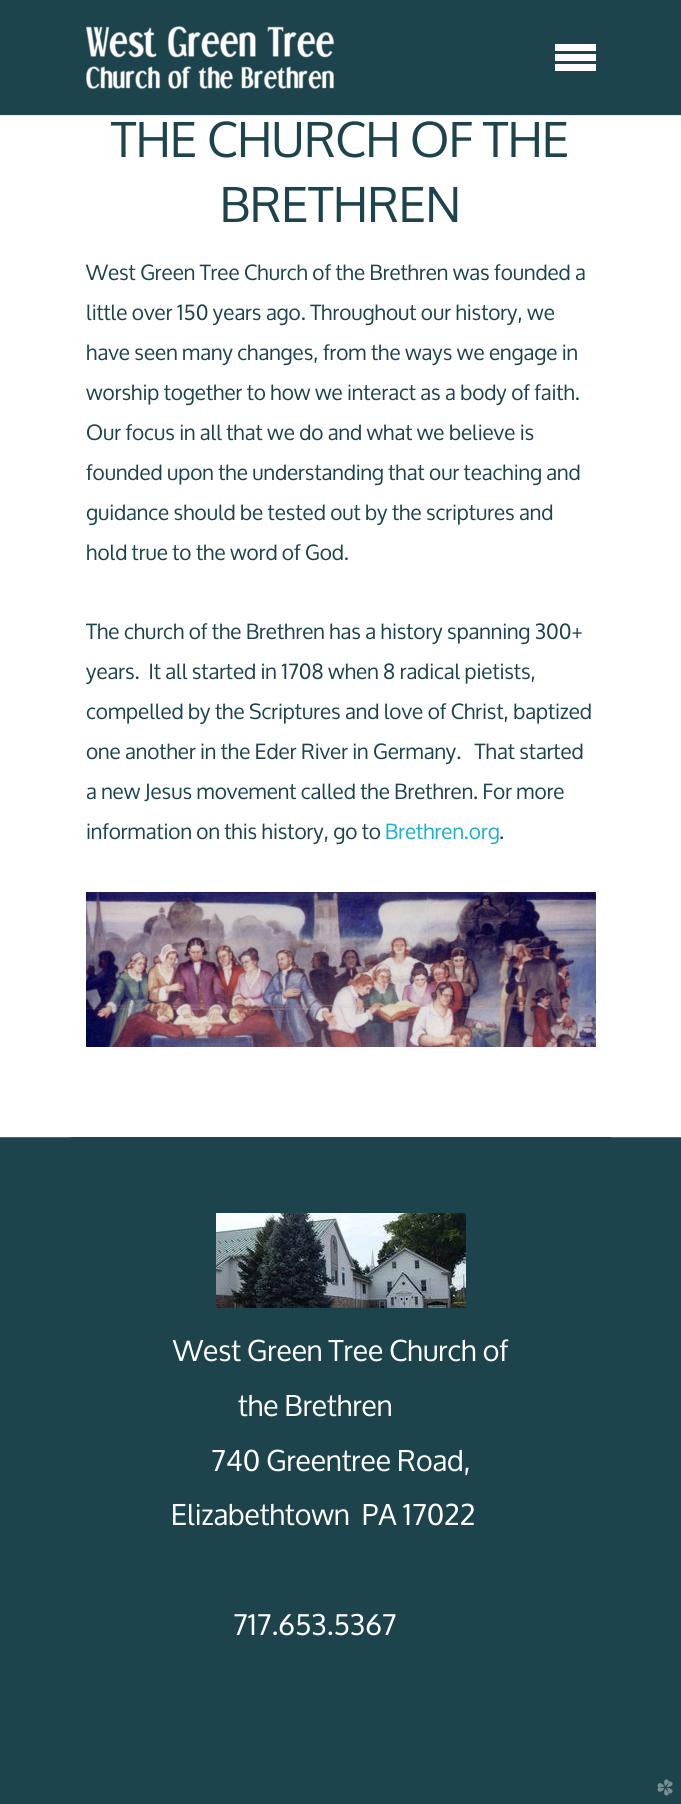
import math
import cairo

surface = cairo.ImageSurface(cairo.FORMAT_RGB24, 681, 1804)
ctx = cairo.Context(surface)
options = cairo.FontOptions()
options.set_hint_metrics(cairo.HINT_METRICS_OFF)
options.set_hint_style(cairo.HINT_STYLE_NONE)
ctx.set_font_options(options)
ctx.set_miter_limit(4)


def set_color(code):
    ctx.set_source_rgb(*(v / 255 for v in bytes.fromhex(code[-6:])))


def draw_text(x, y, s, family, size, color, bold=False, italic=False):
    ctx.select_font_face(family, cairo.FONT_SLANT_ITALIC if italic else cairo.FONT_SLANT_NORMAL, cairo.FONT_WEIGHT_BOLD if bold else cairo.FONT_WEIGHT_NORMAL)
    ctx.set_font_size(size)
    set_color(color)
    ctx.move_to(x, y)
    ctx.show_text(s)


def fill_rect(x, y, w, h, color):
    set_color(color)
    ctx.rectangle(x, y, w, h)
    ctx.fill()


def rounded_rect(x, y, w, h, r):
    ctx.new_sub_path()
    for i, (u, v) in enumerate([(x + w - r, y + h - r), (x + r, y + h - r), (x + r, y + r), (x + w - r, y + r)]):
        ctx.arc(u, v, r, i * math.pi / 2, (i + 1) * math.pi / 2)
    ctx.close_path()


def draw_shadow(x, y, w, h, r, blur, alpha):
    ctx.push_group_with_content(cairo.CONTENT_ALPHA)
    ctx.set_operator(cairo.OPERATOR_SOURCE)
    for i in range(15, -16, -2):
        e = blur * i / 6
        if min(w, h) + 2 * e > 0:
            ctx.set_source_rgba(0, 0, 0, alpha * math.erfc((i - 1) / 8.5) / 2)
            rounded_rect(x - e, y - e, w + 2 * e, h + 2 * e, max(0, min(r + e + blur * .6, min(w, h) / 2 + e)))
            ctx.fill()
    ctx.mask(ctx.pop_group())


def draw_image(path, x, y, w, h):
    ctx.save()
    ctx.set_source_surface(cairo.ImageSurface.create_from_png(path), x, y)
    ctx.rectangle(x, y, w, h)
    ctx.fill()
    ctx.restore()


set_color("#1d444d")
ctx.paint()
fill_rect(0, 115, 681, 1022, "#ffffff")
set_color("#000000")
draw_shadow(0, 0, 681, 115, 0, 1.5, 0.2)
fill_rect(0, 0, 681, 115, "#1d444d")
draw_image("assets/img1.png", 86, 26, 249, 63)
fill_rect(555, 44, 41, 7, "#ffffff")
fill_rect(555, 54, 41, 7, "#ffffff")
fill_rect(555, 64, 41, 7, "#ffffff")
draw_text(111, 157, "THE CHURCH OF THE", "Oxygen", 48, "#1d444d")
draw_text(220, 222, "BRETHREN", "Oxygen", 48, "#1d444d")
draw_text(86, 280, "West Green Tree Church of the Brethren was founded a", "Oxygen", 21.05, "#1d444d")
draw_text(86, 320, "little over 150 years ago. Throughout our history, we", "Oxygen", 21.05, "#1d444d")
draw_text(86, 360, "have seen many changes, from the ways we engage in", "Oxygen", 21.05, "#1d444d")
draw_text(86, 400, "worship together to how we interact as a body of faith.", "Oxygen", 21.05, "#1d444d")
draw_text(86, 440, "Our focus in all that we do and what we believe is", "Oxygen", 21.05, "#1d444d")
draw_text(86, 480, "founded upon the understanding that our teaching and", "Oxygen", 21.05, "#1d444d")
draw_text(86, 520, "guidance should be tested out by the scriptures and", "Oxygen", 21.05, "#1d444d")
draw_text(86, 560, "hold true to the word of God.", "Oxygen", 21.05, "#1d444d")
draw_text(86, 639, "The church of the Brethren has a history spanning 300+", "Oxygen", 21.05, "#1d444d")
draw_text(86, 679, "years.  It all started in 1708 when 8 radical pietists,", "Oxygen", 21.05, "#1d444d")
draw_text(86, 719, "compelled by the Scriptures and love of Christ, baptized", "Oxygen", 21.05, "#1d444d")
draw_text(86, 759, "one another in the Eder River in Germany.   That started", "Oxygen", 21.05, "#1d444d")
draw_text(86, 799, "a new Jesus movement called the Brethren. For more", "Oxygen", 21.05, "#1d444d")
draw_text(86, 839, "information on this history, go to", "Oxygen", 21.05, "#1d444d")
draw_text(385, 839, "Brethren.org", "Oxygen", 21.05, "#1ab1cc")
draw_text(499, 839, ".", "Oxygen", 21.05, "#1d444d")
draw_image("assets/img2.png", 86, 892, 510, 155)
fill_rect(0, 1137, 71, 1, "#487068")
fill_rect(611, 1137, 70, 1, "#487068")
draw_image("assets/img3.png", 216, 1213, 250, 95)
draw_text(173, 1361, "West Green Tree Church of", "Oxygen", 28.8, "#ffffff")
draw_text(238, 1416, "the Brethren", "Oxygen", 28.8, "#ffffff")
draw_text(211, 1471, "740 Greentree Road,", "Oxygen", 28.8, "#ffffff")
draw_text(171, 1525, "Elizabethtown  PA 17022", "Oxygen", 28.8, "#ffffff")
draw_text(233, 1635, "717.653.5367", "Oxygen", 28.5, "#ffffff")
draw_image("assets/img4.png", 657, 1779, 16, 17)
surface.write_to_png("output.png")
